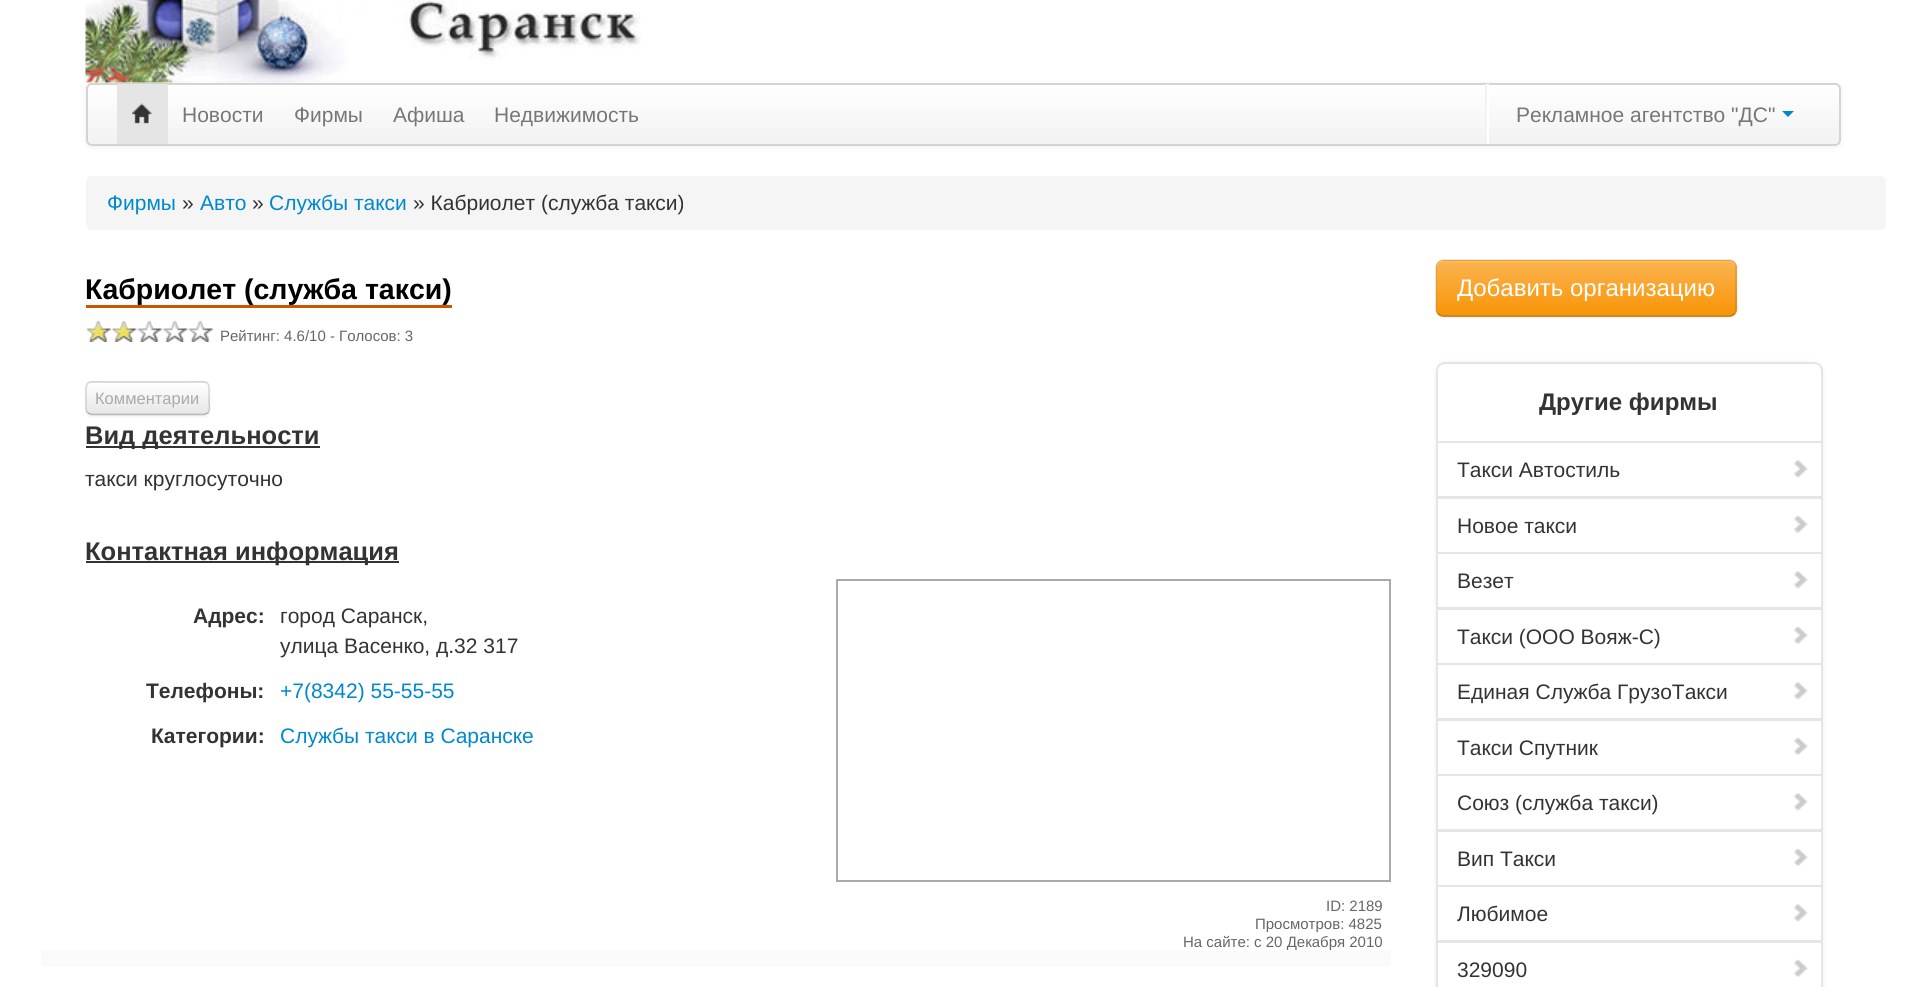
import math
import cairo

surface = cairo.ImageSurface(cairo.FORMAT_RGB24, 1924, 987)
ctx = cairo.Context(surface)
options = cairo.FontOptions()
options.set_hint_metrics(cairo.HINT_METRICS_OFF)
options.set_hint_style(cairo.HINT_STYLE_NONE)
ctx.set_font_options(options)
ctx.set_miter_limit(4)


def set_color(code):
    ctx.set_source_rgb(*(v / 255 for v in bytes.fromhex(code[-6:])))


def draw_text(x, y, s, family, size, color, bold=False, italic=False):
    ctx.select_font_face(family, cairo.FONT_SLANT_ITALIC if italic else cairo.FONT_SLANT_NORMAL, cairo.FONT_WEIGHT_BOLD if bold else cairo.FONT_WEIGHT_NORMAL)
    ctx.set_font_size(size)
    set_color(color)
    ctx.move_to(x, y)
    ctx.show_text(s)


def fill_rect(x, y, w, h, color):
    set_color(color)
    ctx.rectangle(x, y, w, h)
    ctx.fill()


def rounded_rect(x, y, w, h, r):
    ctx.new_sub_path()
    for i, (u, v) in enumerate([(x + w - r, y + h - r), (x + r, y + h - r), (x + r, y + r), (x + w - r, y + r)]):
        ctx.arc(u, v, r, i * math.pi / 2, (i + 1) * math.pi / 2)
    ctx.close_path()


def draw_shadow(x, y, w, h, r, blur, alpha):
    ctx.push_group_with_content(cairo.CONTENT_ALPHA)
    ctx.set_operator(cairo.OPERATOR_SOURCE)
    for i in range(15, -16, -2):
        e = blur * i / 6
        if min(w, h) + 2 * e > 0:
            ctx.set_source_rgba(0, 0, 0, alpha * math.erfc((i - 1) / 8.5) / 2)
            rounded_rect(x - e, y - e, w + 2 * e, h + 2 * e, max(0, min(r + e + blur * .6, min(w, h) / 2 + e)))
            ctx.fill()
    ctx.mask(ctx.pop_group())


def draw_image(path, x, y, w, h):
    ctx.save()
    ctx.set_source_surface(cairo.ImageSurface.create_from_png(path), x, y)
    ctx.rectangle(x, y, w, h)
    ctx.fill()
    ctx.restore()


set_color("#ffffff")
ctx.paint()
draw_image("assets/img1.png", 85, 0, 556, 83)
set_color("#000000")
draw_shadow(86, 84, 1755, 63, 6, 3, 0.07)
ctx.save()
rounded_rect(86, 83, 1755, 63, 6)
ctx.clip()
gradient = cairo.LinearGradient(963, 84, 963, 144)
gradient.add_color_stop_rgba(0, 1, 1, 1, 1)
gradient.add_color_stop_rgba(1, 0.949, 0.949, 0.949, 1)
ctx.set_source(gradient)
ctx.rectangle(86, 84, 1755, 60)
ctx.fill()
ctx.restore()
rounded_rect(87, 84, 1753, 61, 5)
set_color("#d4d4d4")
ctx.stroke()
fill_rect(117, 84, 51, 60, "#e5e5e5")
draw_image("assets/img2.png", 132, 103, 20, 21)
draw_text(182, 122, "Новости", "Liberation Sans", 21, "#777777")
draw_text(294, 122, "Фирмы", "Liberation Sans", 21, "#777777")
draw_text(393, 122, "Афиша", "Liberation Sans", 21, "#777777")
draw_text(494, 122, "Недвижимость", "Liberation Sans", 21, "#777777")
fill_rect(1487, 84, 2, 60, "#ffffff")
fill_rect(1485, 84, 2, 48, "#f2f2f2")
draw_text(1516, 122, "Рекламное агентство \"ДС\"", "Liberation Sans", 21, "#777777")
set_color("#0088cc")
ctx.new_path()
ctx.move_to(1782, 111)
ctx.line_to(1794, 111)
ctx.line_to(1788, 117)
ctx.close_path()
ctx.fill()
set_color("#f5f5f5")
rounded_rect(86, 176, 1800, 54, 6)
ctx.fill()
draw_text(107, 210, "Фирмы", "Liberation Sans", 21, "#0088cc")
draw_text(182, 210, "»", "Liberation Sans", 21, "#333333")
draw_text(200, 210, "Авто", "Liberation Sans", 21, "#0088cc")
draw_text(252, 210, "»", "Liberation Sans", 21, "#333333")
draw_text(269, 210, "Службы такси", "Liberation Sans", 21, "#0088cc")
draw_text(413, 210, "» Кабриолет (служба такси)", "Liberation Sans", 21, "#333333")
draw_text(85, 299, "Кабриолет (служба такси)", "Liberation Sans", 28.5, "#000000", bold=True)
fill_rect(86, 305, 366, 3, "#cc5500")
draw_image("assets/img3.png", 86, 320, 25, 22)
draw_image("assets/img4.png", 112, 320, 25, 22)
draw_image("assets/img5.png", 137, 320, 25, 22)
draw_image("assets/img6.png", 163, 320, 25, 22)
draw_image("assets/img5.png", 188, 320, 25, 22)
draw_text(220, 341, "Рейтинг: 4.6/10 - Голосов: 3", "Liberation Sans", 15, "#666666")
set_color("#000000")
draw_shadow(86, 383, 124, 34, 6, 1.5, 0.05)
set_color("#f5f5f5")
rounded_rect(86, 381, 124, 35, 6)
ctx.fill()
ctx.save()
rounded_rect(86, 381, 124, 35, 6)
ctx.clip()
gradient = cairo.LinearGradient(148, 383, 148, 414)
gradient.add_color_stop_rgba(0, 1, 1, 1, 1)
gradient.add_color_stop_rgba(1, 0.902, 0.902, 0.902, 1)
ctx.set_source(gradient)
ctx.rectangle(86, 383, 124, 31)
ctx.fill()
ctx.restore()
ctx.set_source_rgba(1, 1, 1, 0.2)
ctx.new_path()
ctx.move_to(92, 384)
ctx.line_to(185, 384)
ctx.curve_to(191, 384, 206, 381, 208, 387)
ctx.line_to(208, 412)
ctx.curve_to(209, 411, 209, 410, 209, 409)
ctx.line_to(209, 388)
ctx.curve_to(209, 385, 207, 383, 204, 383)
ctx.line_to(92, 383)
ctx.curve_to(89, 383, 87, 385, 87, 388)
ctx.curve_to(87, 386, 89, 384, 92, 384)
ctx.close_path()
ctx.fill()
ctx.new_path()
ctx.move_to(207.5, 413)
ctx.line_to(204.5, 414.5)
ctx.line_to(91, 414.5)
ctx.line_to(88, 413)
ctx.set_source_rgba(0, 0, 0, 0.25)
ctx.set_line_width(1.5)
ctx.stroke()
ctx.new_path()
ctx.move_to(88, 413)
ctx.curve_to(85, 410.5, 86, 405.5, 86, 402)
ctx.curve_to(86, 378, 83.5, 382, 110, 382)
ctx.line_to(185, 382)
ctx.curve_to(212, 382, 209, 378, 209, 402)
ctx.curve_to(209, 405.5, 210.5, 410.5, 207.5, 413)
ctx.set_source_rgba(0, 0, 0, 0.15)
ctx.stroke()
draw_text(95, 404, "Комментарии", "Liberation Sans", 16.5, "#aaaaaa")
fill_rect(86, 446, 234, 2, "#333333")
draw_text(85, 444, "Вид деятельности", "Liberation Sans", 25.5, "#333333", bold=True)
draw_text(85, 486, "такси круглосуточно", "Liberation Sans", 21, "#333333")
fill_rect(86, 561, 313, 2, "#333333")
draw_text(85, 560, "Контактная информация", "Liberation Sans", 25.5, "#333333", bold=True)
draw_text(193, 623, "Адрес:", "Liberation Sans", 21, "#333333", bold=True)
draw_text(280, 623, "город Саранск,", "Liberation Sans", 21, "#333333")
draw_text(280, 653, "улица Васенко, д.32 317", "Liberation Sans", 21, "#333333")
draw_text(146, 698, "Телефоны:", "Liberation Sans", 21, "#333333", bold=True)
draw_text(280, 698, "+7(8342) 55-55-55", "Liberation Sans", 21, "#0088cc")
draw_text(151, 743, "Категории:", "Liberation Sans", 21, "#333333", bold=True)
draw_text(280, 743, "Службы такси в Саранске", "Liberation Sans", 21, "#0088cc")
ctx.rectangle(837, 580, 553, 301)
set_color("#aaaaaa")
ctx.set_line_width(2)
ctx.stroke()
draw_text(1326, 911, "ID: 2189", "Liberation Sans", 15, "#666666")
draw_text(1255, 929, "Просмотров: 4825", "Liberation Sans", 15, "#666666")
draw_text(1183, 947, "На сайте: с 20 Декабря 2010", "Liberation Sans", 15, "#666666")
fill_rect(41, 951, 1350, 15, "#fafafa")
set_color("#000000")
draw_shadow(1436, 261, 301, 57, 8, 1.5, 0.05)
set_color("#faa732")
rounded_rect(1436, 260, 301, 57, 8)
ctx.fill()
ctx.save()
rounded_rect(1436, 260, 301, 57, 8)
ctx.clip()
gradient = cairo.LinearGradient(1586, 261, 1586, 315)
gradient.add_color_stop_rgba(0, 0.984, 0.706, 0.314, 1)
gradient.add_color_stop_rgba(1, 0.973, 0.58, 0.024, 1)
ctx.set_source(gradient)
ctx.rectangle(1436, 261, 301, 54)
ctx.fill()
ctx.restore()
set_color("#fcc372")
ctx.new_path()
ctx.move_to(1443, 262)
ctx.line_to(1730, 262)
ctx.curve_to(1733, 262, 1736, 265, 1736, 268)
ctx.curve_to(1736, 264, 1734, 261, 1730, 261)
ctx.line_to(1443, 261)
ctx.curve_to(1439, 261, 1437, 264, 1437, 268)
ctx.curve_to(1437, 265, 1440, 262, 1443, 262)
ctx.close_path()
ctx.fill()
ctx.new_path()
ctx.move_to(1734.5, 314)
ctx.curve_to(1733, 315, 1731.5, 316, 1729.5, 316)
ctx.line_to(1443, 316)
ctx.curve_to(1441, 316, 1439.5, 315, 1438, 314)
ctx.set_source_rgba(0, 0, 0, 0.25)
ctx.set_line_width(1.5)
ctx.stroke()
ctx.new_path()
ctx.move_to(1438, 314)
ctx.curve_to(1437, 312.5, 1436, 311, 1436, 309)
ctx.line_to(1436, 267)
ctx.curve_to(1436, 265, 1437, 263.5, 1438, 262)
ctx.curve_to(1439.5, 261, 1441, 260, 1443, 260)
ctx.line_to(1729.5, 260)
ctx.curve_to(1731.5, 260, 1733, 261, 1734.5, 262)
ctx.curve_to(1735.5, 263.5, 1736, 265, 1736, 267)
ctx.line_to(1736, 309)
ctx.curve_to(1736, 311, 1735.5, 312.5, 1734.5, 314)
ctx.set_source_rgba(0, 0, 0, 0.1)
ctx.stroke()
draw_text(1457, 296, "Добавить организацию", "Liberation Sans", 24, "#ffffff")
set_color("#000000")
draw_shadow(1436, 363, 387, 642, 9, 3, 0.07)
set_color("#ffffff")
rounded_rect(1436, 362, 387, 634, 9)
ctx.fill()
ctx.new_path()
ctx.move_to(1445, 363)
ctx.line_to(1814, 363)
ctx.curve_to(1818.5, 363, 1822, 366.5, 1822, 371)
ctx.line_to(1822, 442)
ctx.line_to(1437, 442)
ctx.line_to(1437, 371)
ctx.curve_to(1437, 366.5, 1440.5, 363, 1445, 363)
ctx.close_path()
set_color("#e5e5e5")
ctx.set_line_width(2)
ctx.stroke()
draw_text(1539, 410, "Другие фирмы", "Liberation Sans", 24, "#333333", bold=True)
ctx.rectangle(1437, 442, 385, 55)
set_color("#e5e5e5")
ctx.stroke()
draw_text(1457, 477, "Такси Автостиль", "Liberation Sans", 21, "#333333")
draw_image("assets/img7.png", 1794, 460, 14, 18)
ctx.rectangle(1437, 498, 385, 55)
set_color("#e5e5e5")
ctx.stroke()
draw_text(1457, 533, "Новое такси", "Liberation Sans", 21, "#333333")
draw_image("assets/img8.png", 1794, 515, 14, 18)
ctx.rectangle(1437, 553, 385, 55)
set_color("#e5e5e5")
ctx.stroke()
draw_text(1457, 588, "Везет", "Liberation Sans", 21, "#333333")
draw_image("assets/img7.png", 1794, 571, 14, 18)
ctx.rectangle(1437, 609, 385, 55)
set_color("#e5e5e5")
ctx.stroke()
draw_text(1457, 644, "Такси (ООО Вояж-С)", "Liberation Sans", 21, "#333333")
draw_image("assets/img8.png", 1794, 626, 14, 18)
ctx.rectangle(1437, 664, 385, 55)
set_color("#e5e5e5")
ctx.stroke()
draw_text(1457, 699, "Единая Служба ГрузоТакси", "Liberation Sans", 21, "#333333")
draw_image("assets/img7.png", 1794, 682, 14, 18)
ctx.rectangle(1437, 720, 385, 55)
set_color("#e5e5e5")
ctx.stroke()
draw_text(1457, 755, "Такси Спутник", "Liberation Sans", 21, "#333333")
draw_image("assets/img8.png", 1794, 737, 14, 18)
ctx.rectangle(1437, 775, 385, 55)
set_color("#e5e5e5")
ctx.stroke()
draw_text(1457, 810, "Союз (служба такси)", "Liberation Sans", 21, "#333333")
draw_image("assets/img7.png", 1794, 793, 14, 18)
ctx.rectangle(1437, 831, 385, 55)
set_color("#e5e5e5")
ctx.stroke()
draw_text(1457, 866, "Вип Такси", "Liberation Sans", 21, "#333333")
draw_image("assets/img8.png", 1794, 848, 14, 18)
ctx.rectangle(1437, 886, 385, 55)
set_color("#e5e5e5")
ctx.stroke()
draw_text(1457, 921, "Любимое", "Liberation Sans", 21, "#333333")
draw_image("assets/img7.png", 1794, 904, 14, 18)
ctx.rectangle(1437, 942, 385, 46)
set_color("#e5e5e5")
ctx.stroke()
draw_text(1457, 977, "329090", "Liberation Sans", 21, "#333333")
draw_image("assets/img8.png", 1794, 959, 14, 18)
surface.write_to_png("output.png")
